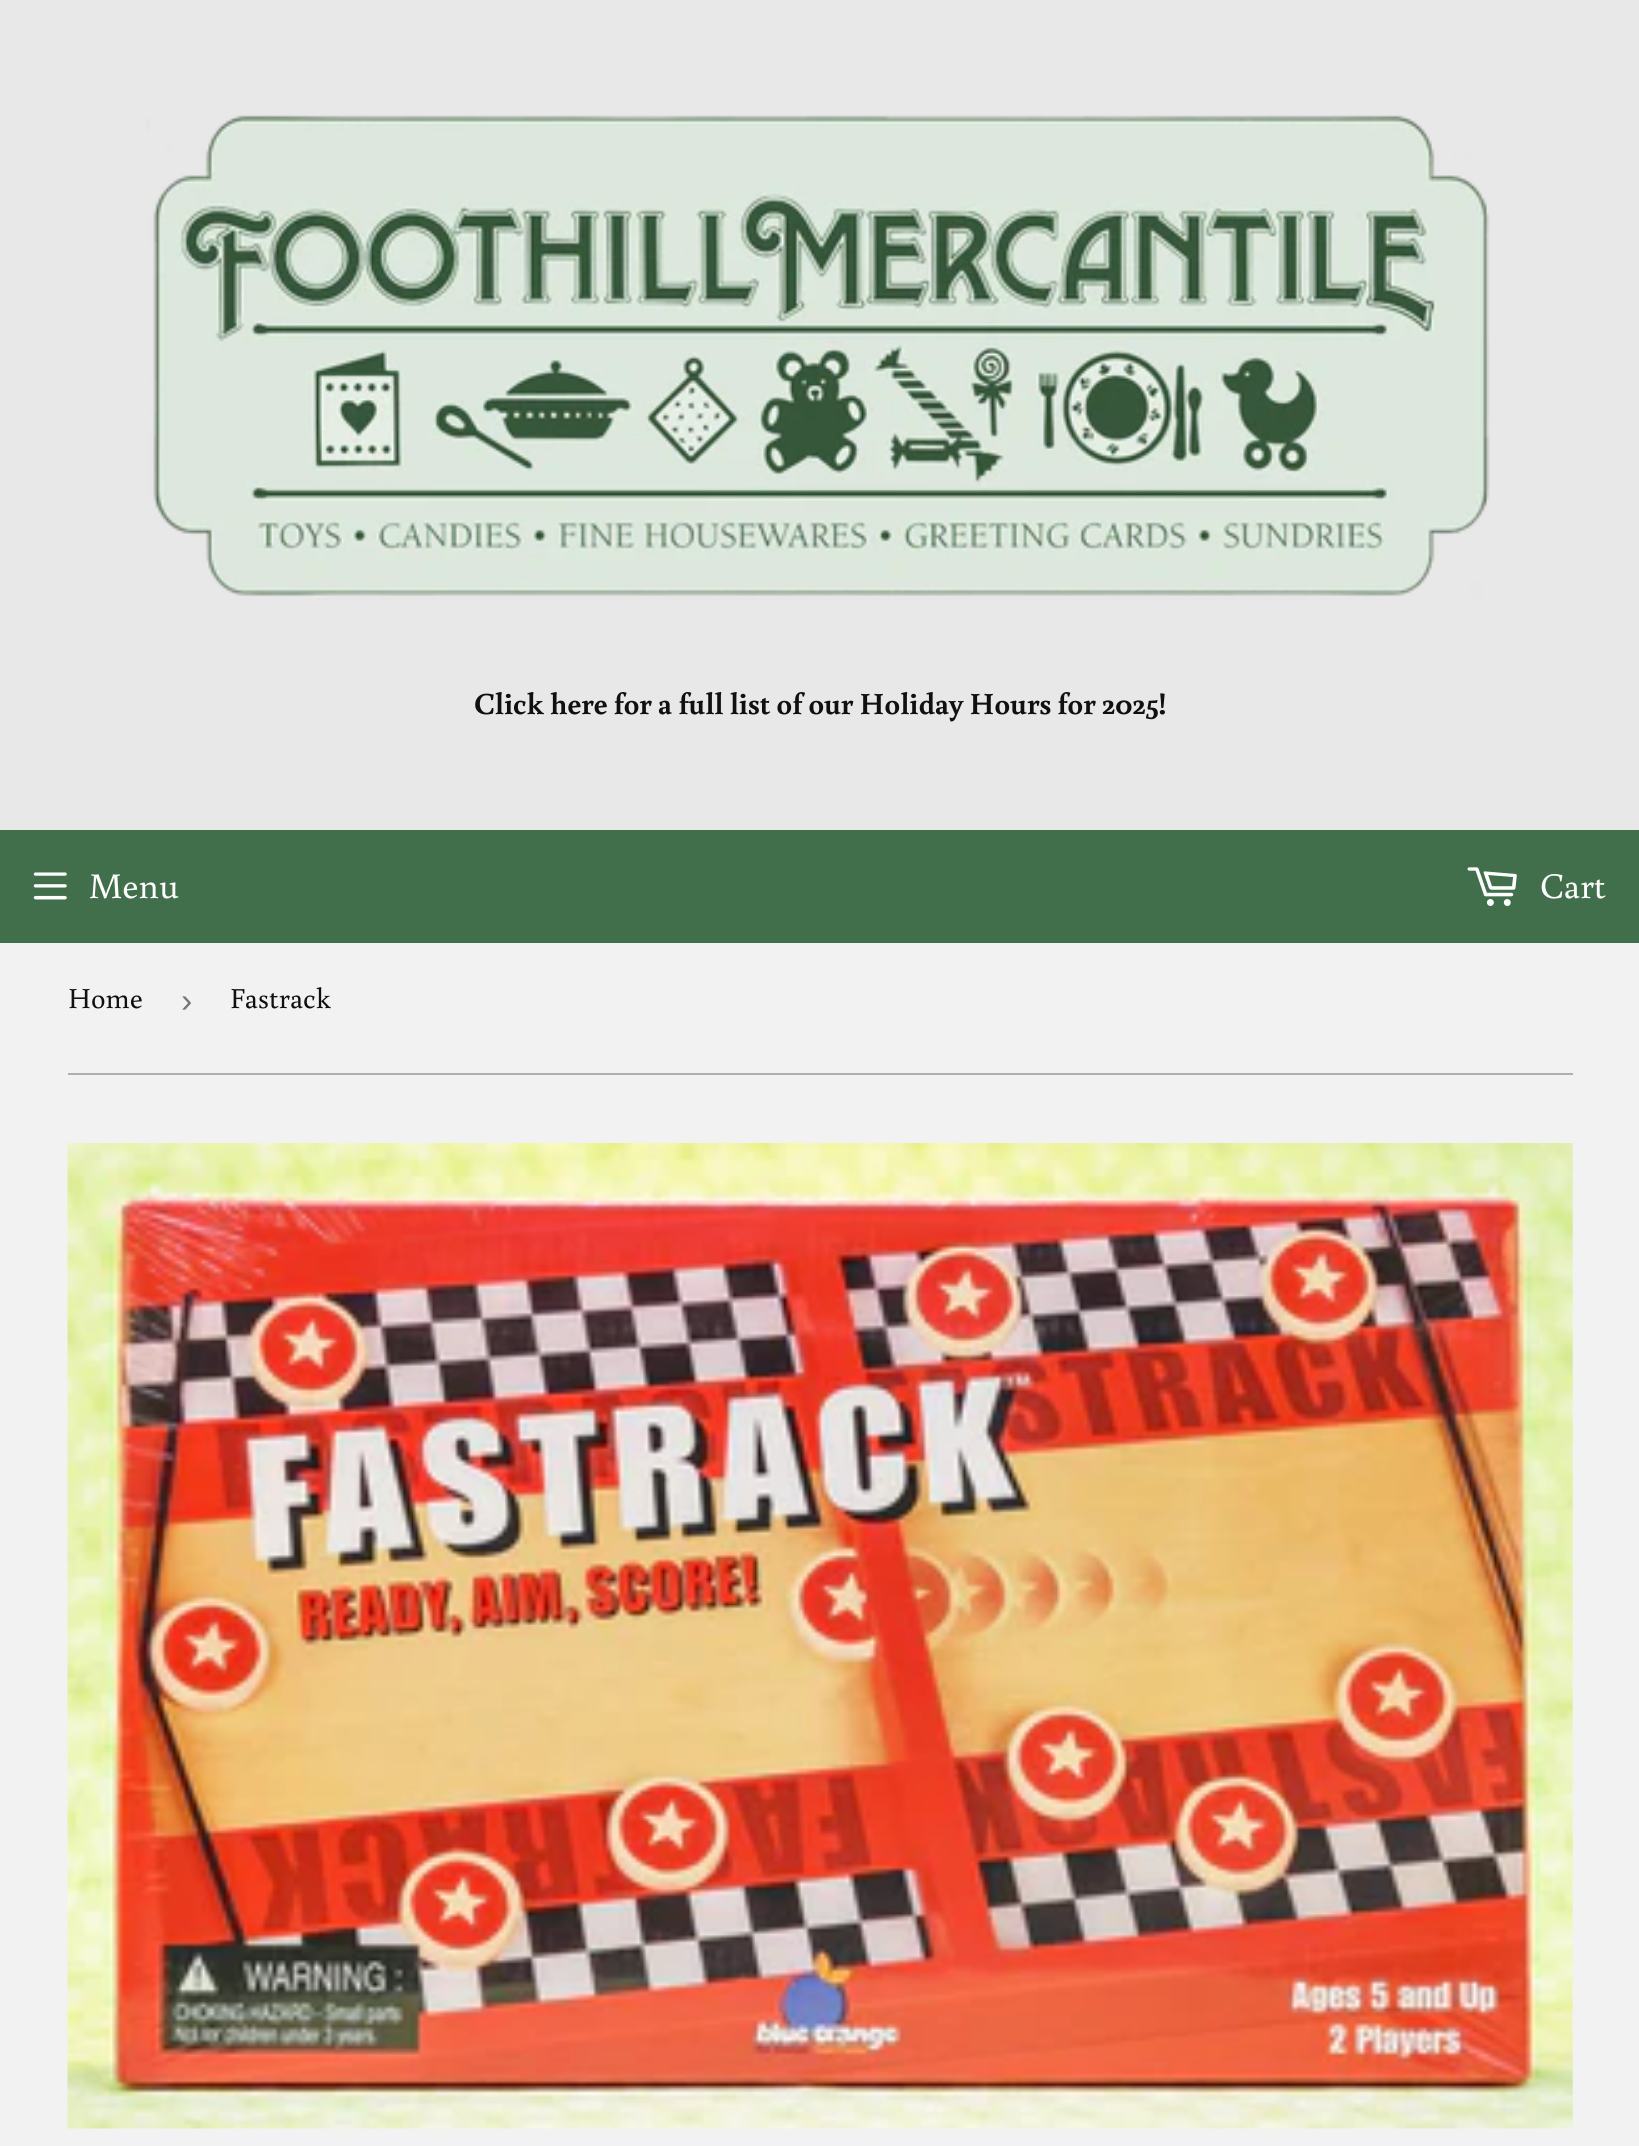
import math
import cairo

surface = cairo.ImageSurface(cairo.FORMAT_RGB24, 1639, 2146)
ctx = cairo.Context(surface)
options = cairo.FontOptions()
options.set_hint_metrics(cairo.HINT_METRICS_OFF)
options.set_hint_style(cairo.HINT_STYLE_NONE)
ctx.set_font_options(options)
ctx.set_miter_limit(4)


def set_color(code):
    ctx.set_source_rgb(*(v / 255 for v in bytes.fromhex(code[-6:])))


def draw_text(x, y, s, family, size, color, bold=False, italic=False):
    ctx.select_font_face(family, cairo.FONT_SLANT_ITALIC if italic else cairo.FONT_SLANT_NORMAL, cairo.FONT_WEIGHT_BOLD if bold else cairo.FONT_WEIGHT_NORMAL)
    ctx.set_font_size(size)
    set_color(color)
    ctx.move_to(x, y)
    ctx.show_text(s)


def fill_rect(x, y, w, h, color):
    set_color(color)
    ctx.rectangle(x, y, w, h)
    ctx.fill()


def draw_image(path, x, y, w, h):
    ctx.save()
    ctx.set_source_surface(cairo.ImageSurface.create_from_png(path), x, y)
    ctx.rectangle(x, y, w, h)
    ctx.fill()
    ctx.restore()


set_color("#f2f2f2")
ctx.paint()
fill_rect(0, 0, 1639, 830, "#e8e8e8")
draw_image("assets/img1.png", 146, 115, 1344, 485)
draw_text(474, 714, "Click here for a full list of our Holiday Hours for 2025!", "Buenard", 30.6, "#111010", bold=True)
fill_rect(0, 830, 1639, 113, "#416f4c")
draw_image("assets/img2.png", 33, 872, 34, 28)
draw_text(89, 898, "Menu", "Buenard", 36, "#ffffff")
draw_image("assets/img3.png", 1467, 867, 50, 39)
draw_text(1540, 898, "Cart", "Buenard", 36, "#ffffff")
fill_rect(68, 1073, 1505, 2, "#aeaeae")
draw_text(68, 1008, "Home", "Buenard", 29, "#111010")
draw_text(181, 1012, "›", "Liberation Sans", 34, "#767676")
draw_text(230, 1008, "Fastrack", "Buenard", 29, "#111010")
draw_image("assets/img4.png", 67, 1143, 1506, 986)
surface.write_to_png("output.png")
